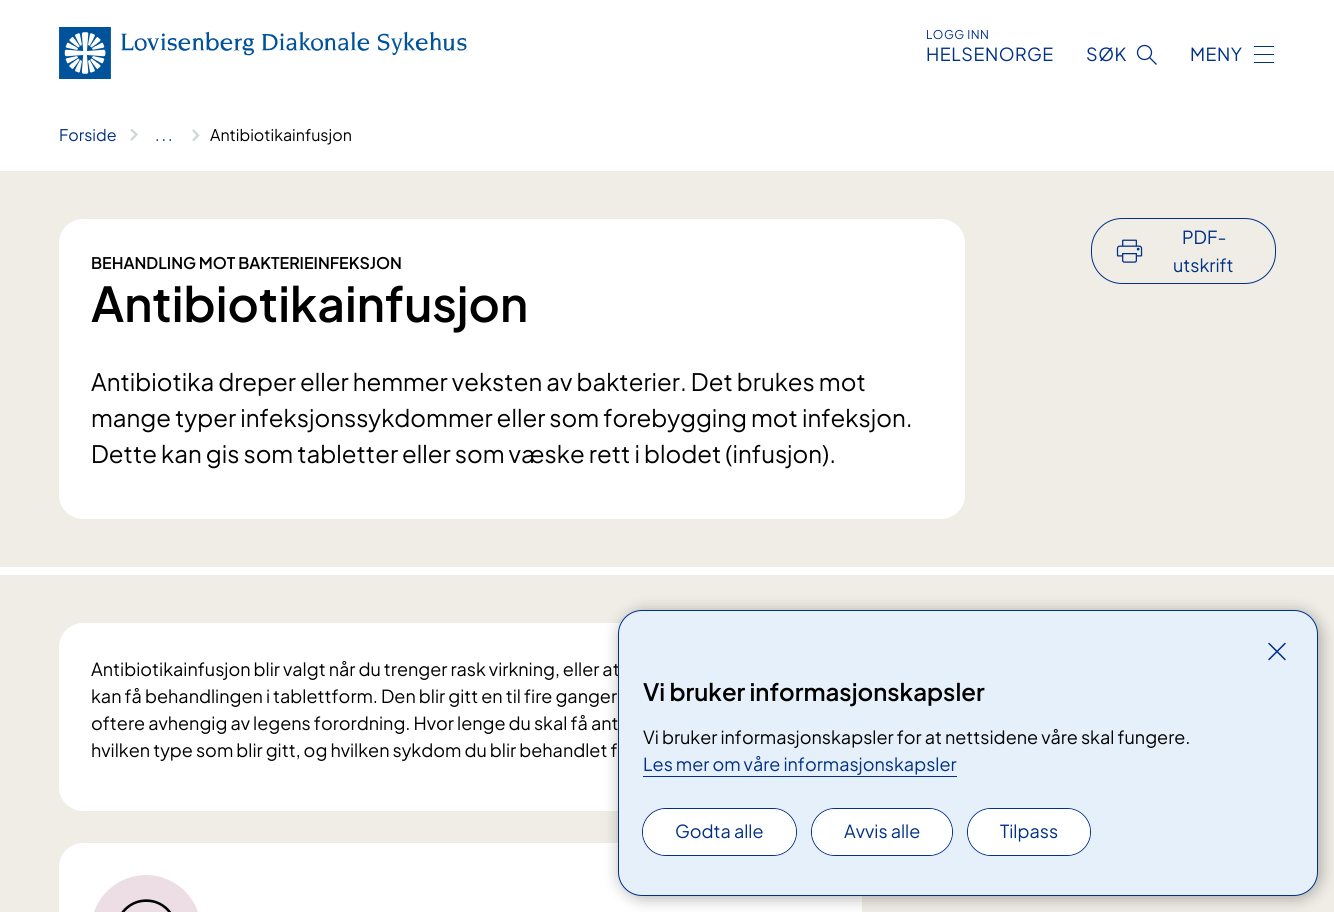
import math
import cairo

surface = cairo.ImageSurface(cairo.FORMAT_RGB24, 1334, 912)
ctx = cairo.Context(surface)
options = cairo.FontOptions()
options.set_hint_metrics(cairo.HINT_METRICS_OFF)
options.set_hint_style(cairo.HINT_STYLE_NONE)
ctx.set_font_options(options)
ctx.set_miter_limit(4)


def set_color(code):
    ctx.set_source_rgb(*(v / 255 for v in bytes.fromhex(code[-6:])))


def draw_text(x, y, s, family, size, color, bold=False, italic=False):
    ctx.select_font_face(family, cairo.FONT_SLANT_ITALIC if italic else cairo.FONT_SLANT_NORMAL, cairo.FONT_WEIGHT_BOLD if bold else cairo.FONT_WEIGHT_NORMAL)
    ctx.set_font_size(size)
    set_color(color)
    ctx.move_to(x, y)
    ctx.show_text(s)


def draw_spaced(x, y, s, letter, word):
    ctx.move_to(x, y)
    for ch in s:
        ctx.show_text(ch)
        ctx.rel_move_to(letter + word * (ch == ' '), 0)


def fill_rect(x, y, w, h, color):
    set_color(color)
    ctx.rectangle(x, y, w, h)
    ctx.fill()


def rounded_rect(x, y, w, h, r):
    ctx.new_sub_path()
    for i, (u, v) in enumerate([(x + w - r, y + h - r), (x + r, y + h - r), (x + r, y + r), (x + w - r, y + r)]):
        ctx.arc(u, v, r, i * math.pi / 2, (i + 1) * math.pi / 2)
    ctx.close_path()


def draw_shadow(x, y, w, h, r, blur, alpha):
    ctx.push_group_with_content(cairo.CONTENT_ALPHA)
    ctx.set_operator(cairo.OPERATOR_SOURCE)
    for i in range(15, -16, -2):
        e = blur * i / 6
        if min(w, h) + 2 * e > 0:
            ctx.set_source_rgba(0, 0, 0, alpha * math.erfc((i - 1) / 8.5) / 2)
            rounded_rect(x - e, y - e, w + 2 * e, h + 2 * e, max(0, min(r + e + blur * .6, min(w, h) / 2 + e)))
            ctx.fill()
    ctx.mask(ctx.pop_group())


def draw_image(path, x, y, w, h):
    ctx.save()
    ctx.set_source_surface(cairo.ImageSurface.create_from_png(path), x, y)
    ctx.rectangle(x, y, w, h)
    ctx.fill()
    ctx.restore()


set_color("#ffffff")
ctx.paint()
draw_image("assets/img1.png", 59, 27, 408, 52)
ctx.select_font_face("Plus Jakarta Sans")
ctx.set_font_size(12)
set_color("#003087")
draw_spaced(926, 39, "LOGG INN", 0.5, 0)
ctx.set_font_size(18)
draw_spaced(926, 61, "HELSENORGE", 0.5, 0)
draw_spaced(1086, 61, "SØK", 0.5, 0)
ctx.new_path()
ctx.arc(1144.5, 52.5, 7, 0, 2 * math.pi)
ctx.set_line_width(1.3)
ctx.stroke()
ctx.new_path()
ctx.move_to(1149.5, 57.5)
ctx.line_to(1156.5, 64.5)
ctx.stroke()
draw_spaced(1190, 61, "MENY", 0.5, 0)
fill_rect(1254, 46, 20, 1, "#003087")
fill_rect(1254, 62, 20, 1, "#003087")
fill_rect(1254, 54, 20, 1, "#003087")
draw_text(59, 141, "Forside", "Plus Jakarta Sans", 16, "#003087")
ctx.save()
ctx.new_path()
ctx.move_to(130.5, 141)
ctx.line_to(130.5, 129)
ctx.line_to(138.5, 129)
ctx.line_to(138.5, 141)
ctx.close_path()
ctx.clip()
ctx.new_path()
ctx.move_to(130.5, 141)
ctx.line_to(130.5, 129)
ctx.line_to(138.5, 129)
ctx.line_to(138.5, 141)
ctx.close_path()
ctx.clip()
ctx.new_path()
ctx.move_to(131.5, 139.5)
ctx.line_to(136.5, 134.5)
ctx.line_to(131.5, 130)
set_color("#d2d8da")
ctx.set_line_width(2.4)
ctx.set_line_cap(cairo.LINE_CAP_ROUND)
ctx.stroke()
ctx.restore()
draw_spaced(155, 141, "..", 2, 0)
draw_text(168, 141, ".", "Plus Jakarta Sans", 16, "#003087")
ctx.save()
ctx.new_path()
ctx.move_to(192, 141)
ctx.line_to(192, 129)
ctx.line_to(200, 129)
ctx.line_to(200, 141)
ctx.close_path()
ctx.clip()
ctx.new_path()
ctx.move_to(192.5, 141)
ctx.line_to(192.5, 129)
ctx.line_to(200, 129)
ctx.line_to(200, 141)
ctx.close_path()
ctx.clip()
ctx.new_path()
ctx.move_to(193.5, 140)
ctx.line_to(198, 135.5)
ctx.line_to(193.5, 130.5)
set_color("#d2d8da")
ctx.set_line_width(2.4)
ctx.set_line_cap(cairo.LINE_CAP_ROUND)
ctx.stroke()
ctx.restore()
draw_text(210, 141, "Antibiotikainfusjon", "Plus Jakarta Sans", 16, "#000000")
fill_rect(0, 171, 1334, 396, "#efede6")
rounded_rect(1091.5, 218.5, 184, 65, 30.5)
set_color("#003087")
ctx.set_line_width(1)
ctx.stroke()
draw_text(1182, 244, "PDF-", "Plus Jakarta Sans", 18, "#003087")
draw_image("assets/img2.png", 1116, 239, 27, 24)
draw_text(1173, 272, "utskrift", "Plus Jakarta Sans", 18, "#003087")
set_color("#ffffff")
rounded_rect(59, 219, 906, 300, 24)
ctx.fill()
draw_text(91, 269, "BEHANDLING MOT BAKTERIEINFEKSJON", "Plus Jakarta Sans SemiBold", 16, "#000000")
draw_text(91, 322, "Antibiotikainfusjon", "Plus Jakarta Sans SemiBold", 48, "#000000")
draw_text(91, 391, "Antibiotika dreper eller hemmer veksten av bakterier. Det brukes mot", "Plus Jakarta Sans", 24, "#000000")
draw_text(91, 427, "mange typer infeksjonssykdommer eller som forebygging mot infeksjon.", "Plus Jakarta Sans", 24, "#000000")
draw_text(91, 463, "Dette kan gis som tabletter eller som væske rett i blodet (infusjon).", "Plus Jakarta Sans", 24, "#000000")
fill_rect(0, 575, 1334, 337, "#efede6")
set_color("#ffffff")
rounded_rect(59, 623, 803, 188, 24)
ctx.fill()
draw_text(91, 676, "Antibiotikainfusjon blir valgt når du trenger rask virkning, eller at", "Plus Jakarta Sans", 18, "#000000")
draw_text(91, 703, "kan få behandlingen i tablettform. Den blir gitt en til fire ganger", "Plus Jakarta Sans", 18, "#000000")
draw_text(91, 730, "oftere avhengig av legens forordning. Hvor lenge du skal få ant", "Plus Jakarta Sans", 18, "#000000")
draw_text(91, 757, "hvilken type som blir gitt, og hvilken sykdom du blir behandlet f", "Plus Jakarta Sans", 18, "#000000")
set_color("#ffffff")
rounded_rect(59, 843, 803, 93, 24)
ctx.fill()
set_color("#eddee5")
rounded_rect(91, 875, 110, 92, 55)
ctx.fill()
draw_image("assets/img3.png", 121, 899, 51, 13)
set_color("#000000")
draw_shadow(620, 612, 700, 286, 24, 8, 0.32)
set_color("#e6f0fa")
rounded_rect(618.5, 610.5, 699, 285, 23.5)
ctx.fill_preserve()
set_color("#003087")
ctx.stroke()
ctx.new_path()
ctx.move_to(1269, 643.5)
ctx.line_to(1285, 659.5)
ctx.move_to(1269, 659.5)
ctx.line_to(1285, 643.5)
ctx.set_line_width(1.5)
ctx.set_line_cap(cairo.LINE_CAP_ROUND)
ctx.stroke()
draw_text(643, 701, "Vi bruker informasjonskapsler", "Plus Jakarta Sans SemiBold", 24, "#000000")
draw_text(643, 744, "Vi bruker informasjonskapsler for at nettsidene våre skal fungere.", "Plus Jakarta Sans", 18, "#000000")
draw_text(643, 771, "Les mer om våre informasjonskapsler", "Plus Jakarta Sans", 18, "#003087")
fill_rect(643, 776, 314, 1, "#003087")
rounded_rect(642.5, 808.5, 154, 47, 23.5)
ctx.set_line_width(1)
ctx.set_line_cap(cairo.LINE_CAP_BUTT)
ctx.stroke()
set_color("#ffffff")
rounded_rect(643, 809, 153, 46, 23)
ctx.fill()
draw_text(675, 838, "Godta alle", "Plus Jakarta Sans", 18, "#003087")
rounded_rect(811.5, 808.5, 141, 47, 23.5)
ctx.stroke()
set_color("#ffffff")
rounded_rect(812, 809, 140, 46, 23)
ctx.fill()
draw_text(844, 838, "Avvis alle", "Plus Jakarta Sans", 18, "#003087")
rounded_rect(967.5, 808.5, 123, 47, 23.5)
ctx.stroke()
set_color("#ffffff")
rounded_rect(968, 809, 122, 46, 23)
ctx.fill()
draw_text(1000, 838, "Tilpass", "Plus Jakarta Sans", 18, "#003087")
surface.write_to_png("output.png")
